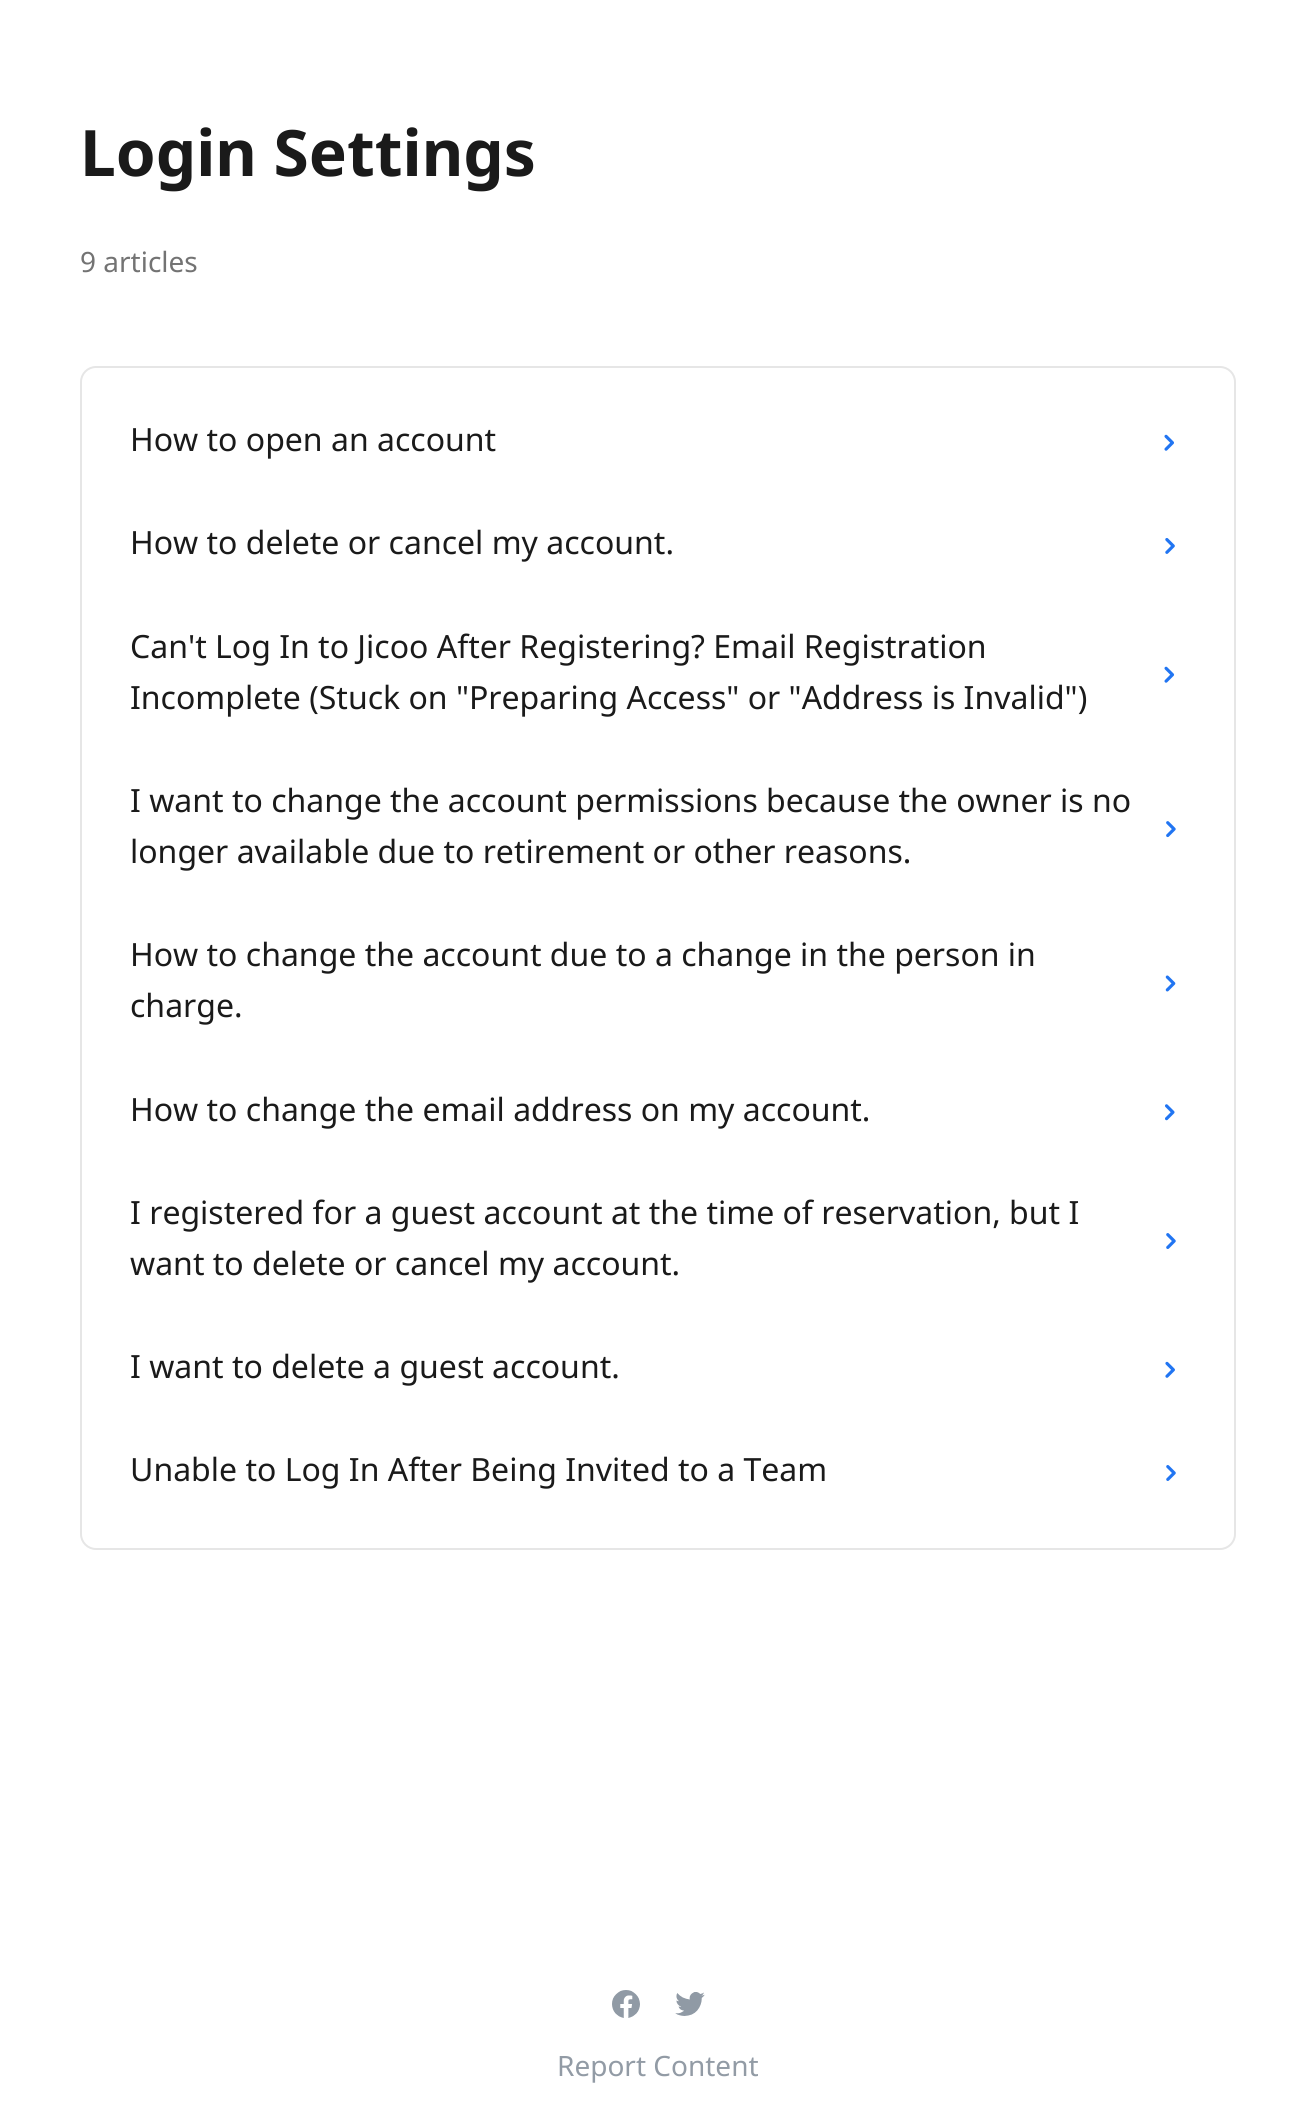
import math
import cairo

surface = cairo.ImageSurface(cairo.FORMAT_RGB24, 1316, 2107)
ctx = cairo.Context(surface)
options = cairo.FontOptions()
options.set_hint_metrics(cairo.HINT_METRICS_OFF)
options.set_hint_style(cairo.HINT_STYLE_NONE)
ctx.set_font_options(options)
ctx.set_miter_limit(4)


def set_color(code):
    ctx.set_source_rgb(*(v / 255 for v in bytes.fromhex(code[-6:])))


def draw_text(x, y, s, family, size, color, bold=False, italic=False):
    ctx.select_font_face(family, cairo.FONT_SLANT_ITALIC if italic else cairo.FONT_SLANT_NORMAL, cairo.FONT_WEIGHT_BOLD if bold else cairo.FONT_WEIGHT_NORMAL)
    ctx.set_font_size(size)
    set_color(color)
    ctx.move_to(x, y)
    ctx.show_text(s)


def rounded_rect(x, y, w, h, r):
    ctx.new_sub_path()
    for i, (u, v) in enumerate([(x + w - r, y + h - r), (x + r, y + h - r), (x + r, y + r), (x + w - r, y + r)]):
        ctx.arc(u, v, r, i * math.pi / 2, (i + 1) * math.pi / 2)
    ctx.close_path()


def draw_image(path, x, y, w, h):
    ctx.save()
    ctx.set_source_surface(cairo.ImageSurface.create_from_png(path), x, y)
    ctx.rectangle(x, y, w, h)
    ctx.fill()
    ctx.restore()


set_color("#ffffff")
ctx.paint()
draw_text(80, 176, "Login Settings", "Noto Sans", 64, "#1a1a1a", bold=True)
draw_text(80, 272, "9 articles", "Noto Sans", 28, "#737373")
rounded_rect(81, 367, 1154, 1182, 15)
set_color("#e6e6e6")
ctx.stroke()
draw_text(130, 451, "How to open an account", "Noto Sans", 32, "#1a1a1a")
draw_image("assets/img1.png", 1164, 434, 10, 17)
draw_text(130, 554, "How to delete or cancel my account.", "Noto Sans", 32, "#1a1a1a")
draw_image("assets/img2.png", 1165, 538, 10, 16)
draw_text(130, 658, "Can't Log In to Jicoo After Registering? Email Registration", "Noto Sans", 32, "#1a1a1a")
draw_text(130, 709, "Incomplete (Stuck on \"Preparing Access\" or \"Address is Invalid\")", "Noto Sans", 32, "#1a1a1a")
draw_image("assets/img3.png", 1164, 666, 11, 17)
draw_text(130, 812, "I want to change the account permissions because the owner is no", "Noto Sans", 32, "#1a1a1a")
draw_text(130, 863, "longer available due to retirement or other reasons.", "Noto Sans", 32, "#1a1a1a")
draw_image("assets/img4.png", 1166, 821, 10, 17)
draw_text(130, 966, "How to change the account due to a change in the person in", "Noto Sans", 32, "#1a1a1a")
draw_text(130, 1017, "charge.", "Noto Sans", 32, "#1a1a1a")
draw_image("assets/img5.png", 1165, 975, 11, 17)
draw_text(130, 1121, "How to change the email address on my account.", "Noto Sans", 32, "#1a1a1a")
draw_image("assets/img6.png", 1165, 1104, 10, 17)
draw_text(130, 1224, "I registered for a guest account at the time of reservation, but I", "Noto Sans", 32, "#1a1a1a")
draw_text(130, 1275, "want to delete or cancel my account.", "Noto Sans", 32, "#1a1a1a")
draw_image("assets/img7.png", 1166, 1233, 10, 16)
draw_text(130, 1378, "I want to delete a guest account.", "Noto Sans", 32, "#1a1a1a")
draw_image("assets/img8.png", 1165, 1361, 10, 17)
draw_text(130, 1481, "Unable to Log In After Being Invited to a Team", "Noto Sans", 32, "#1a1a1a")
draw_image("assets/img9.png", 1166, 1465, 10, 16)
draw_image("assets/img10.png", 612, 1990, 28, 28)
draw_image("assets/img11.png", 675, 1992, 30, 24)
draw_text(557, 2076, "Report Content", "Noto Sans", 28, "#929ba5")
surface.write_to_png("output.png")
